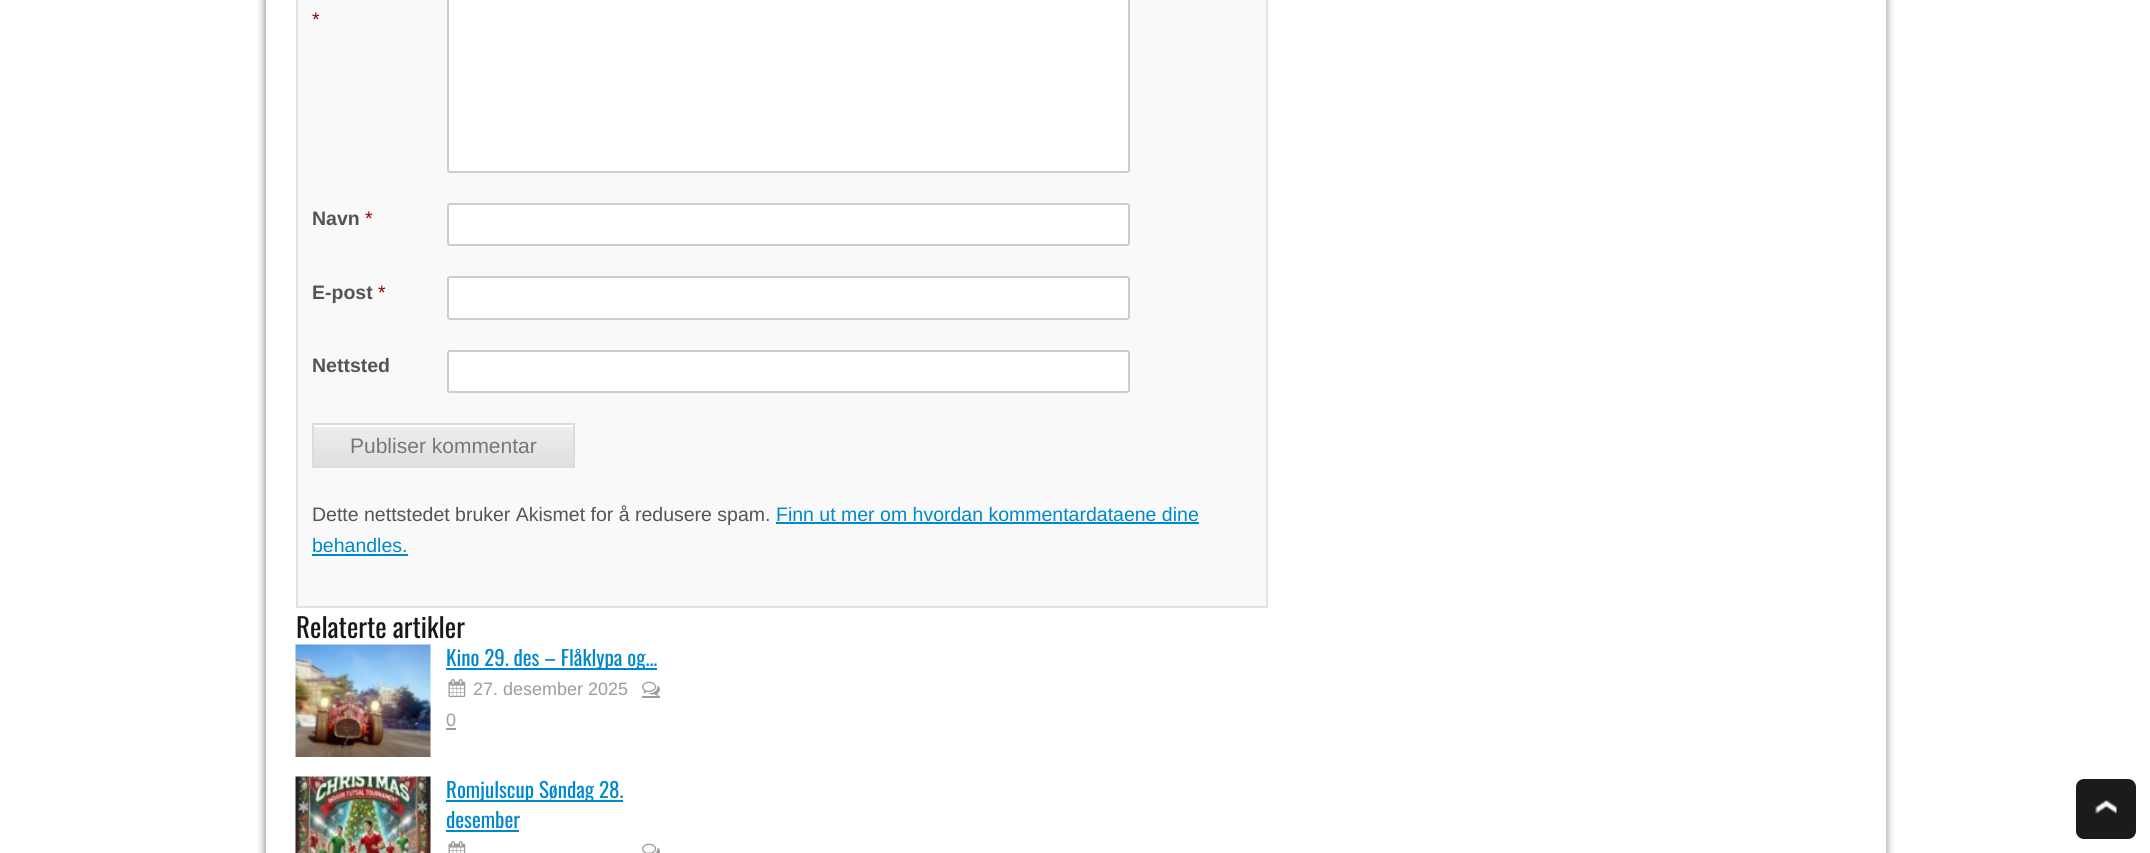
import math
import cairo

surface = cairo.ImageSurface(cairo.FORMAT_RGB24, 2150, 853)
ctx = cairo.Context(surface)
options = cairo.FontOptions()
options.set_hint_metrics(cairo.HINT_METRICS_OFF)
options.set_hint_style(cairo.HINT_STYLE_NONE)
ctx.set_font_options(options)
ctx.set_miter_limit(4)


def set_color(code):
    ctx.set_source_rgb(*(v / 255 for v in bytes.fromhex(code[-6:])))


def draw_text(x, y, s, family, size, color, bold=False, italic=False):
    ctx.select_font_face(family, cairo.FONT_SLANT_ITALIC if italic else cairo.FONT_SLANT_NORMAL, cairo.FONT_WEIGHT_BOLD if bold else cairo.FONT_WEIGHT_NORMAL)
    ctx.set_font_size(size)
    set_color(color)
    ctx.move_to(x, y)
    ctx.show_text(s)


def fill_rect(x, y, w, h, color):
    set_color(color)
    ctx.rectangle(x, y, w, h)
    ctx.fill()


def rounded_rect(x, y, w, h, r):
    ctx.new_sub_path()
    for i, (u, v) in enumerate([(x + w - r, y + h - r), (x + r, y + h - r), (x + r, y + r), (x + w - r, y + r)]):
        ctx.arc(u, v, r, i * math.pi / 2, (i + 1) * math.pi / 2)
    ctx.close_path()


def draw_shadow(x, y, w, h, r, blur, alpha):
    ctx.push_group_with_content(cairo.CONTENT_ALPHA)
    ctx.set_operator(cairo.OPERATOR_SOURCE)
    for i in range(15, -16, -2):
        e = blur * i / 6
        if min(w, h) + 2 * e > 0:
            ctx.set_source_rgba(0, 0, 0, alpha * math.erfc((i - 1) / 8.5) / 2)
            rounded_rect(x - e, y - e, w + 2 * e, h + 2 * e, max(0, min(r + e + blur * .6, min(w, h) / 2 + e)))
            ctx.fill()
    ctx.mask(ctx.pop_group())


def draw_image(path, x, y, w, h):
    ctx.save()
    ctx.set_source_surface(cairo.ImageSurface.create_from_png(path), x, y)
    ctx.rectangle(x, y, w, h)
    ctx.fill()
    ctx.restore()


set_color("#ffffff")
ctx.paint()
set_color("#000000")
draw_shadow(264, -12, 1623, 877, 0, 4, 0.4)
fill_rect(266, 0, 1620, 853, "#ffffff")
set_color("#f9f9f9")
ctx.rectangle(297, -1, 970, 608)
ctx.fill_preserve()
set_color("#e2e2e2")
ctx.stroke()
draw_text(312, 26, "*", "Liberation Sans", 19.5, "#990000")
set_color("#ffffff")
rounded_rect(448, -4, 681, 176, 2)
ctx.fill_preserve()
set_color("#cccccc")
ctx.stroke()
draw_text(312, 225, "Navn", "Liberation Sans", 19.5, "#545454", bold=True)
draw_text(365, 225, "*", "Liberation Sans", 19.5, "#990000")
set_color("#ffffff")
rounded_rect(448, 204, 681, 41, 2)
ctx.fill_preserve()
set_color("#cccccc")
ctx.stroke()
draw_text(312, 299, "E-post", "Liberation Sans", 19.5, "#545454", bold=True)
draw_text(378, 299, "*", "Liberation Sans", 19.5, "#990000")
set_color("#ffffff")
rounded_rect(448, 277, 681, 42, 2)
ctx.fill_preserve()
set_color("#cccccc")
ctx.stroke()
draw_text(312, 372, "Nettsted", "Liberation Sans", 19.5, "#545454", bold=True)
set_color("#ffffff")
rounded_rect(448, 351, 681, 41, 2)
ctx.fill_preserve()
set_color("#cccccc")
ctx.stroke()
gradient = cairo.LinearGradient(314, 425, 314, 467)
gradient.add_color_stop_rgba(0.05, 0.929, 0.929, 0.929, 1)
gradient.add_color_stop_rgba(1, 0.875, 0.875, 0.875, 1)
ctx.set_source(gradient)
ctx.rectangle(314, 427, 259, 39)
ctx.fill()
fill_rect(314, 425, 259, 2, "#ffffff")
ctx.rectangle(313, 424, 261, 43)
set_color("#dcdcdc")
ctx.stroke()
draw_text(350, 453, "Publiser kommentar", "Liberation Sans", 21, "#777777")
draw_text(312, 521, "Dette nettstedet bruker Akismet for å redusere spam.", "Liberation Sans", 19.5, "#545454")
draw_text(776, 521, "Finn ut mer om hvordan kommentardataene dine", "Liberation Sans", 19.5, "#0088cc")
fill_rect(776, 522, 423, 2, "#0088cc")
draw_text(312, 552, "behandles.", "Liberation Sans", 19.5, "#0088cc")
fill_rect(312, 554, 96, 2, "#0088cc")
draw_text(296, 638, "Relaterte artikler", "Oswald", 27, "#181818")
draw_image("assets/img1.png", 295, 644, 136, 113)
fill_rect(446, 668, 211, 2, "#0088cc")
draw_text(446, 666, "Kino 29. des – Flåklypa og...", "Oswald", 21, "#0088cc")
draw_image("assets/img2.png", 448, 679, 18, 19)
draw_text(473, 695, "27. desember 2025", "Liberation Sans", 18, "#9c9c9c")
fill_rect(642, 696, 18, 2, "#9c9c9c")
draw_image("assets/img3.png", 642, 681, 18, 15)
draw_text(446, 726, "0", "Liberation Sans", 18, "#9c9c9c")
fill_rect(446, 728, 10, 2, "#9c9c9c")
draw_image("assets/img4.png", 295, 776, 136, 77)
fill_rect(446, 800, 177, 2, "#0088cc")
draw_text(446, 798, "Romjulscup Søndag 28.", "Oswald", 21, "#0088cc")
draw_text(446, 828, "desember", "Oswald", 21, "#0088cc")
fill_rect(446, 830, 73, 2, "#0088cc")
draw_image("assets/img5.png", 448, 841, 18, 12)
draw_image("assets/img6.png", 642, 843, 18, 10)
set_color("#1b1b1b")
rounded_rect(2076, 779, 60, 60, 8)
ctx.fill()
draw_image("assets/img7.png", 2095, 800, 22, 14)
surface.write_to_png("output.png")
